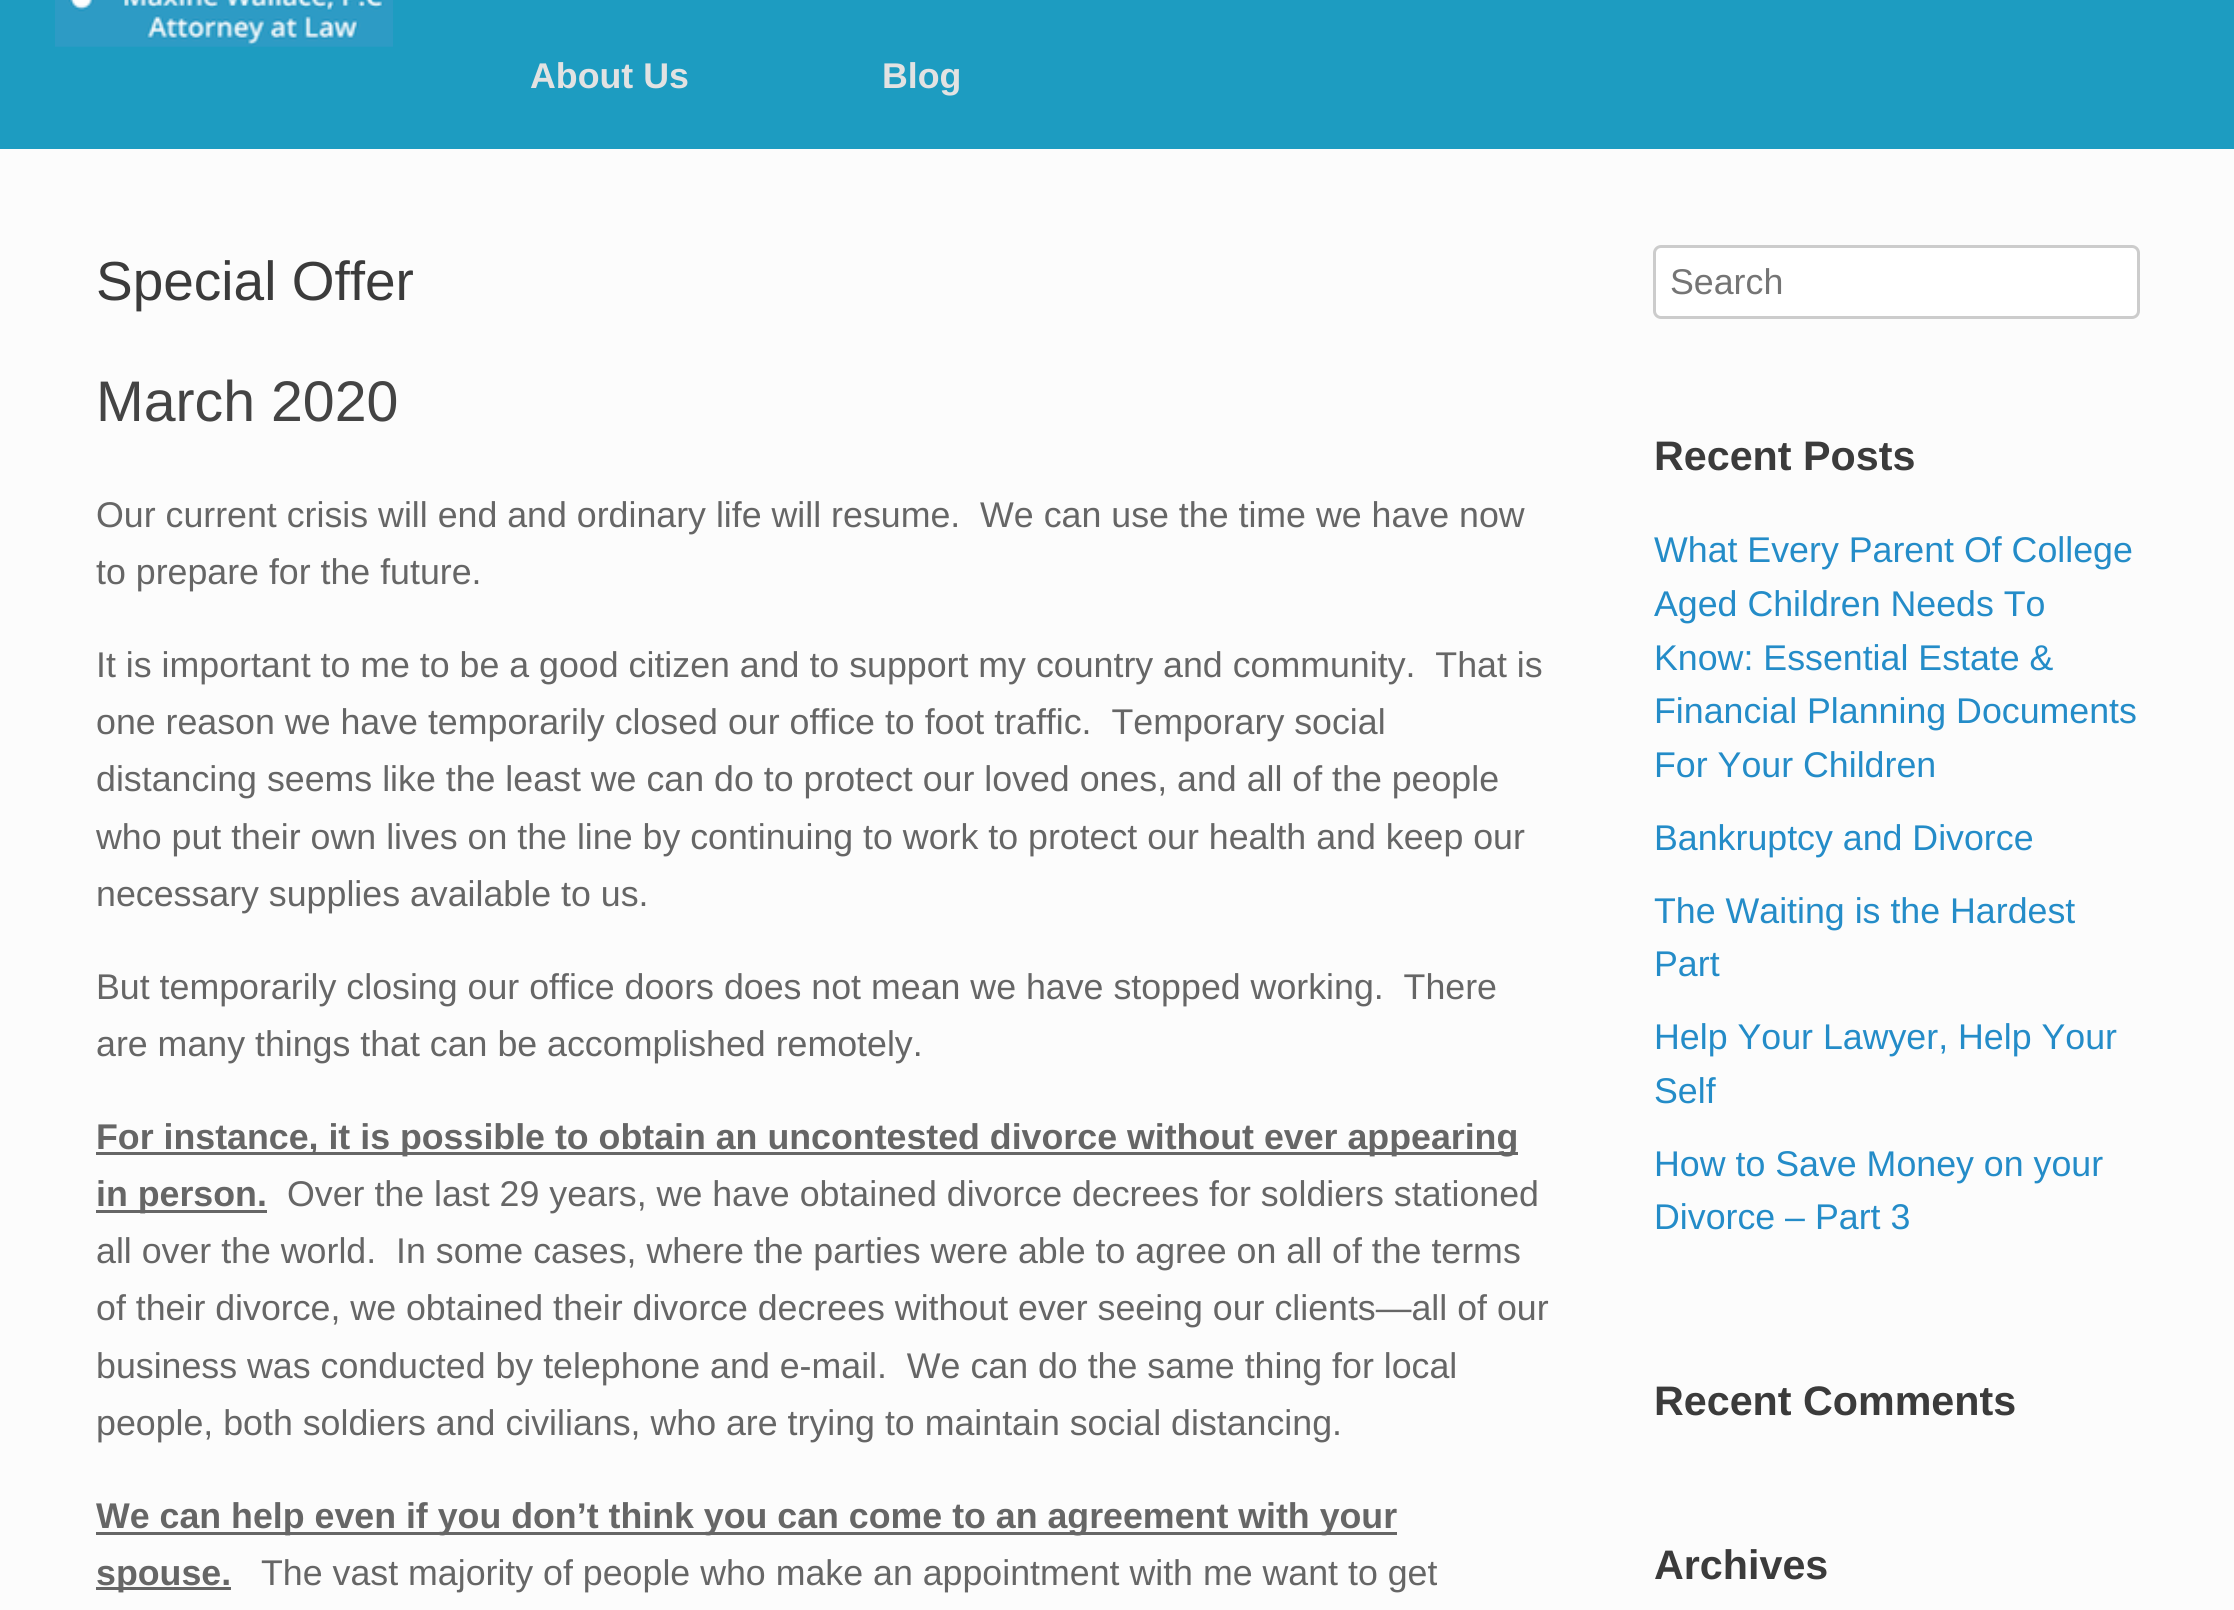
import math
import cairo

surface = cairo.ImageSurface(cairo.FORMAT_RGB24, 2234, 1610)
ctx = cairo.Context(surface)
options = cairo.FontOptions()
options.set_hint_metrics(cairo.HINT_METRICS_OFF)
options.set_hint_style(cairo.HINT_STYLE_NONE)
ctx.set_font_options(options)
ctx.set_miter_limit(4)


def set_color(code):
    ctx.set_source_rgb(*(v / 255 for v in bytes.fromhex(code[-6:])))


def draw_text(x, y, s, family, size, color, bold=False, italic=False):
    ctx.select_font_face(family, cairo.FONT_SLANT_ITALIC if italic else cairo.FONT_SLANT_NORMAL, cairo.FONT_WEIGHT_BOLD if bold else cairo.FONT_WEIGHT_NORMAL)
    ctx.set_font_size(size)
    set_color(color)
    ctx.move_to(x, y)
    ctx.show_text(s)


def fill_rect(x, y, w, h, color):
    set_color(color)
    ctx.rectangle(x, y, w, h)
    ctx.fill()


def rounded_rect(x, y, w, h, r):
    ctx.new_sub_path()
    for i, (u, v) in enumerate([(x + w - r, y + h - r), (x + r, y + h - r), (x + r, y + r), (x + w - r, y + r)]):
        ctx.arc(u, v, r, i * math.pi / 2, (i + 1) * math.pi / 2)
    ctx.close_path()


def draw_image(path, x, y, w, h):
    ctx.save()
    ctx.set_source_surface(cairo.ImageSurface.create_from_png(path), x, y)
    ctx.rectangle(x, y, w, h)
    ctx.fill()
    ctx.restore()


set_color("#fcfcfc")
ctx.paint()
fill_rect(0, 0, 2234, 149, "#1d9cc1")
draw_image("assets/img1.png", 55, 0, 338, 47)
draw_text(530, 88, "About Us", "Liberation Sans", 35.75, "#e2e2e2", bold=True)
draw_text(882, 88, "Blog", "Liberation Sans", 35.75, "#e2e2e2", bold=True)
draw_text(96, 300, "Special Offer", "Liberation Sans", 55, "#3b3b3b")
draw_text(96, 421, "March 2020", "Liberation Sans", 57.25, "#444444")
draw_text(96, 527, "Our current crisis will end and ordinary life will resume.  We can use the time we have now", "Liberation Sans", 35.75, "#666666")
draw_text(96, 584, "to prepare for the future.", "Liberation Sans", 35.75, "#666666")
draw_text(96, 677, "It is important to me to be a good citizen and to support my country and community.  That is", "Liberation Sans", 35.75, "#666666")
draw_text(96, 734, "one reason we have temporarily closed our office to foot traffic.  Temporary social", "Liberation Sans", 35.75, "#666666")
draw_text(96, 791, "distancing seems like the least we can do to protect our loved ones, and all of the people", "Liberation Sans", 35.75, "#666666")
draw_text(96, 849, "who put their own lives on the line by continuing to work to protect our health and keep our", "Liberation Sans", 35.75, "#666666")
draw_text(96, 906, "necessary supplies available to us.", "Liberation Sans", 35.75, "#666666")
draw_text(96, 999, "But temporarily closing our office doors does not mean we have stopped working.  There", "Liberation Sans", 35.75, "#666666")
draw_text(96, 1056, "are many things that can be accomplished remotely.", "Liberation Sans", 35.75, "#666666")
fill_rect(96, 1152, 1422, 3, "#666666")
draw_text(96, 1149, "For instance, it is possible to obtain an uncontested divorce without ever appearing", "Liberation Sans", 35.75, "#666666", bold=True)
fill_rect(96, 1210, 171, 3, "#666666")
draw_text(96, 1206, "in person.", "Liberation Sans", 35.75, "#666666", bold=True)
draw_text(287, 1206, "Over the last 29 years, we have obtained divorce decrees for soldiers stationed", "Liberation Sans", 35.75, "#666666")
draw_text(96, 1263, "all over the world.  In some cases, where the parties were able to agree on all of the terms", "Liberation Sans", 35.75, "#666666")
draw_text(96, 1320, "of their divorce, we obtained their divorce decrees without ever seeing our clients—all of our", "Liberation Sans", 35.75, "#666666")
draw_text(96, 1378, "business was conducted by telephone and e-mail.  We can do the same thing for local", "Liberation Sans", 35.75, "#666666")
draw_text(96, 1435, "people, both soldiers and civilians, who are trying to maintain social distancing.", "Liberation Sans", 35.75, "#666666")
fill_rect(96, 1532, 1301, 3, "#666666")
draw_text(96, 1528, "We can help even if you don’t think you can come to an agreement with your", "Liberation Sans", 35.75, "#666666", bold=True)
fill_rect(96, 1587, 135, 3, "#666666")
draw_text(96, 1585, "spouse.", "Liberation Sans", 35.75, "#666666", bold=True)
draw_text(261, 1585, "The vast majority of people who make an appointment with me want to get", "Liberation Sans", 35.75, "#666666")
set_color("#ffffff")
rounded_rect(1654.5, 246.5, 484, 71, 6.5)
ctx.fill_preserve()
set_color("#cccccc")
ctx.set_line_width(3)
ctx.stroke()
draw_text(1670, 294, "Search", "Liberation Sans", 35.75, "#757575")
draw_text(1654, 470, "Recent Posts", "Liberation Sans", 41.25, "#3b3b3b", bold=True)
draw_text(1654, 562, "What Every Parent Of College", "Liberation Sans", 35.75, "#248cc8")
draw_text(1654, 616, "Aged Children Needs To", "Liberation Sans", 35.75, "#248cc8")
draw_text(1654, 670, "Know: Essential Estate &", "Liberation Sans", 35.75, "#248cc8")
draw_text(1654, 723, "Financial Planning Documents", "Liberation Sans", 35.75, "#248cc8")
draw_text(1654, 777, "For Your Children", "Liberation Sans", 35.75, "#248cc8")
draw_text(1654, 850, "Bankruptcy and Divorce", "Liberation Sans", 35.75, "#248cc8")
draw_text(1654, 923, "The Waiting is the Hardest", "Liberation Sans", 35.75, "#248cc8")
draw_text(1654, 976, "Part", "Liberation Sans", 35.75, "#248cc8")
draw_text(1654, 1049, "Help Your Lawyer, Help Your", "Liberation Sans", 35.75, "#248cc8")
draw_text(1654, 1103, "Self", "Liberation Sans", 35.75, "#248cc8")
draw_text(1654, 1176, "How to Save Money on your", "Liberation Sans", 35.75, "#248cc8")
draw_text(1654, 1229, "Divorce – Part 3", "Liberation Sans", 35.75, "#248cc8")
draw_text(1654, 1415, "Recent Comments", "Liberation Sans", 41.25, "#3b3b3b", bold=True)
draw_text(1654, 1579, "Archives", "Liberation Sans", 41.25, "#3b3b3b", bold=True)
surface.write_to_png("output.png")
